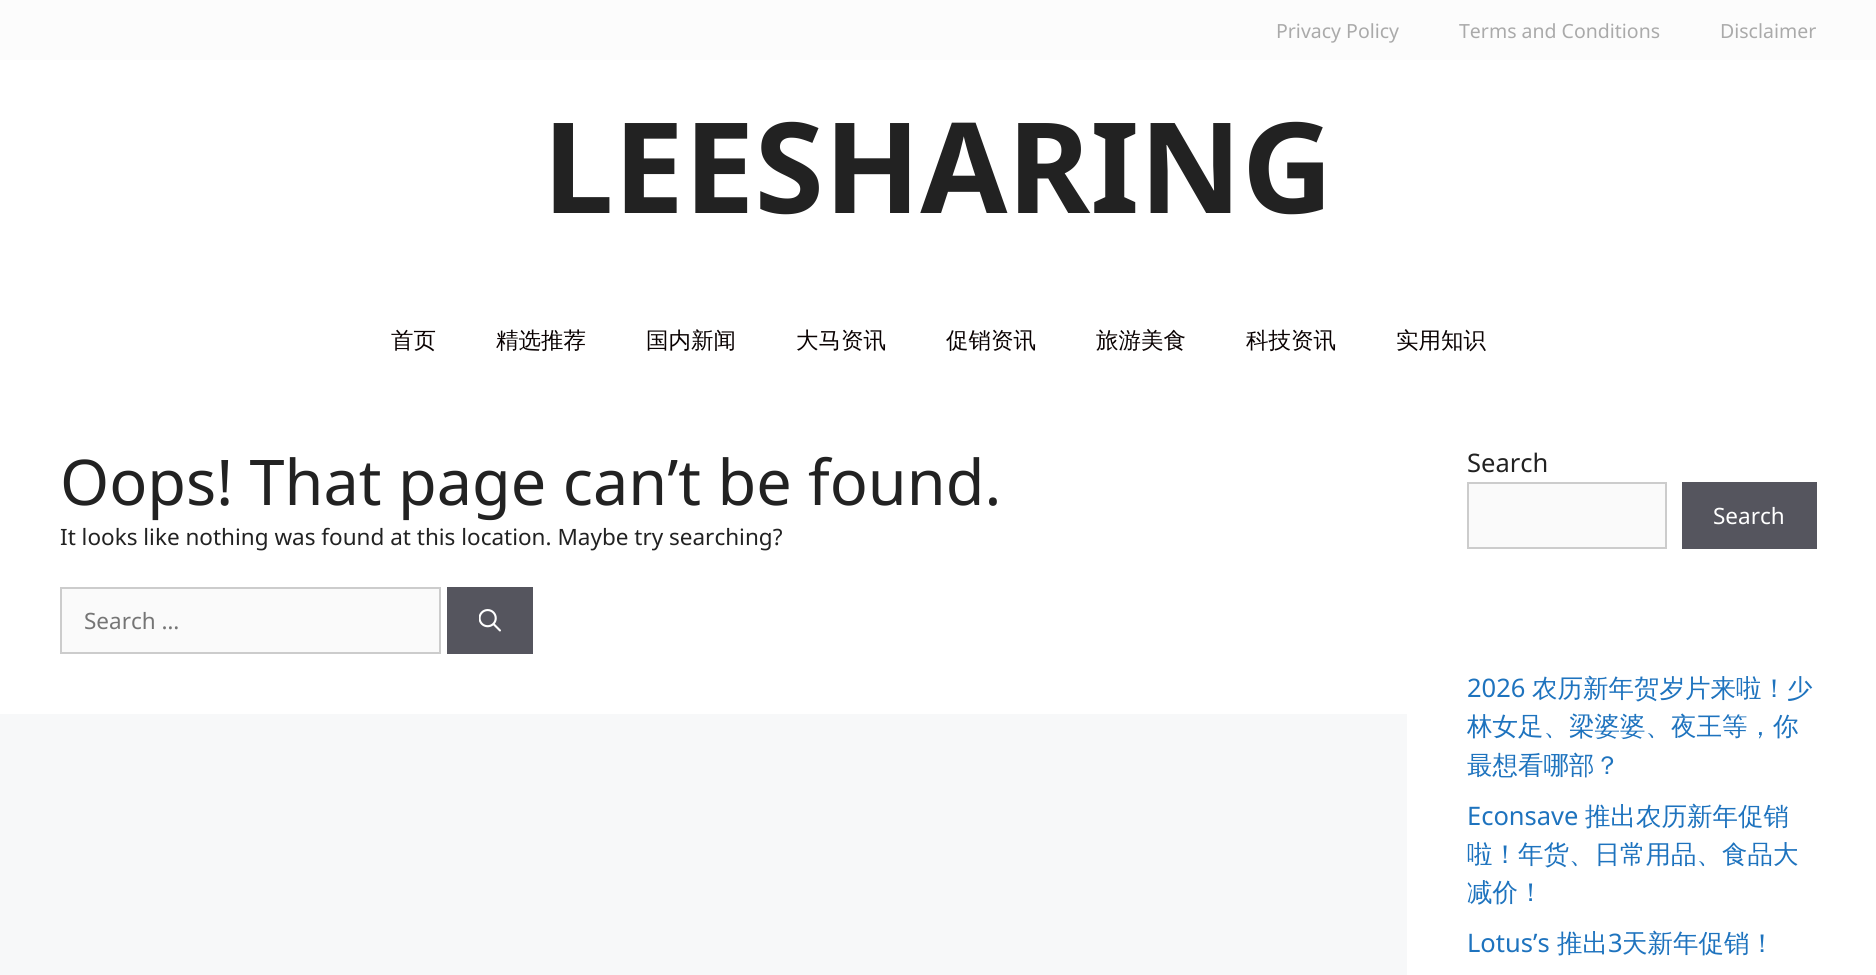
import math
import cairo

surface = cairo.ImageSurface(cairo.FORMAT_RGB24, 1876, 975)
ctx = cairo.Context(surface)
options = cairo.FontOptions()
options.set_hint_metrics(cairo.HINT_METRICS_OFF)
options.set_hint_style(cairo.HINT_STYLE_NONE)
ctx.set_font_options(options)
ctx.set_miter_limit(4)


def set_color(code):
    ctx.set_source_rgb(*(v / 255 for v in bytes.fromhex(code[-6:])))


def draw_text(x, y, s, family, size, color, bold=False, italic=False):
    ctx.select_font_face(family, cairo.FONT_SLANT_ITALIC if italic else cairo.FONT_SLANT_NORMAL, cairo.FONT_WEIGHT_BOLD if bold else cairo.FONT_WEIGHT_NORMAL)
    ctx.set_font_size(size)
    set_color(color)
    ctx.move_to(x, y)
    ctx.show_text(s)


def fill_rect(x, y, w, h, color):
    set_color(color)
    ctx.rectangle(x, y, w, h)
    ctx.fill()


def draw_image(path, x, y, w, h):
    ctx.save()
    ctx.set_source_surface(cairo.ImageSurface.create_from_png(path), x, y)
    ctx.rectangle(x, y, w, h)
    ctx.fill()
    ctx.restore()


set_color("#f7f8f9")
ctx.paint()
fill_rect(0, 0, 1876, 60, "#fcfcfc")
draw_text(1276, 38, "Privacy Policy", "Noto Sans", 19.5, "#aaaaaa")
draw_text(1459, 38, "Terms and Conditions", "Noto Sans", 19.5, "#aaaaaa")
draw_text(1720, 38, "Disclaimer", "Noto Sans", 19.5, "#aaaaaa")
fill_rect(0, 60, 1876, 324, "#ffffff")
draw_text(543, 213, "LEESHARING", "Noto Sans", 126, "#222222", bold=True)
draw_text(391, 348, "首页", "WenQuanYi Zen Hei Medium", 22.5, "#0a0202")
draw_text(496, 348, "精选推荐", "WenQuanYi Zen Hei Medium", 22.5, "#0a0202")
draw_text(646, 348, "国内新闻", "WenQuanYi Zen Hei Medium", 22.5, "#0a0202")
draw_text(796, 348, "大马资讯", "WenQuanYi Zen Hei Medium", 22.5, "#0a0202")
draw_text(946, 348, "促销资讯", "WenQuanYi Zen Hei Medium", 22.5, "#0a0202")
draw_text(1096, 348, "旅游美食", "WenQuanYi Zen Hei Medium", 22.5, "#0a0202")
draw_text(1246, 348, "科技资讯", "WenQuanYi Zen Hei Medium", 22.5, "#0a0202")
draw_text(1396, 348, "实用知识", "WenQuanYi Zen Hei Medium", 22.5, "#0a0202")
fill_rect(0, 384, 1407, 330, "#ffffff")
draw_text(60, 505, "Oops! That page can’t be found.", "Noto Sans", 63, "#222222")
draw_text(60, 545, "It looks like nothing was found at this location. Maybe try searching?", "Noto Sans", 22.5, "#222222")
set_color("#fafafa")
ctx.rectangle(61, 588, 379, 65)
ctx.fill_preserve()
set_color("#cccccc")
ctx.stroke()
draw_text(84, 629, "Search …", "Noto Sans", 22.5, "#757575")
fill_rect(447, 587, 86, 67, "#55555e")
draw_image("assets/img1.png", 479, 609, 22, 23)
fill_rect(1407, 384, 469, 591, "#ffffff")
draw_text(1467, 472, "Search", "Noto Sans", 25.5, "#222222")
set_color("#fafafa")
ctx.rectangle(1468, 483, 198, 65)
ctx.fill_preserve()
set_color("#cccccc")
ctx.stroke()
fill_rect(1682, 482, 135, 67, "#55555e")
draw_text(1713, 524, "Search", "Noto Sans", 22.5, "#ffffff")
draw_text(1467, 697, "2026", "Noto Sans", 25.5, "#1e73be")
draw_text(1532, 697, "农历新年贺岁片来啦！少", "WenQuanYi Zen Hei Medium", 25.5, "#1e73be")
draw_text(1467, 735, "林女足、梁婆婆、夜王等，你", "WenQuanYi Zen Hei Medium", 25.5, "#1e73be")
draw_text(1467, 774, "最想看哪部？", "WenQuanYi Zen Hei Medium", 25.5, "#1e73be")
draw_text(1467, 825, "Econsave", "Noto Sans", 25.5, "#1e73be")
draw_text(1585, 825, "推出农历新年促销", "WenQuanYi Zen Hei Medium", 25.5, "#1e73be")
draw_text(1467, 863, "啦！年货、日常用品、食品大", "WenQuanYi Zen Hei Medium", 25.5, "#1e73be")
draw_text(1467, 901, "减价！", "WenQuanYi Zen Hei Medium", 25.5, "#1e73be")
draw_text(1467, 952, "Lotus’s", "Noto Sans", 25.5, "#1e73be")
draw_text(1557, 952, "推出", "WenQuanYi Zen Hei Medium", 25.5, "#1e73be")
draw_text(1608, 952, "3", "Noto Sans", 25.5, "#1e73be")
draw_text(1622, 952, "天新年促销！", "WenQuanYi Zen Hei Medium", 25.5, "#1e73be")
surface.write_to_png("output.png")
